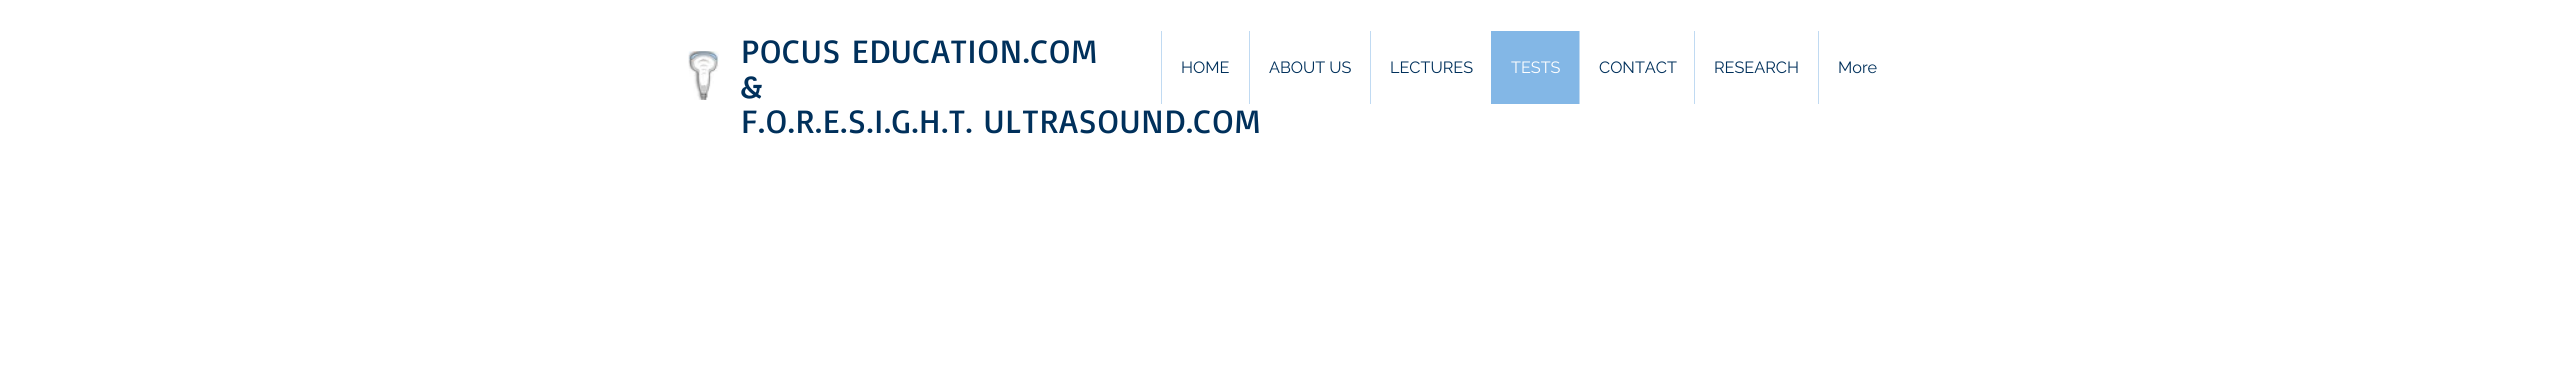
import math
import cairo

surface = cairo.ImageSurface(cairo.FORMAT_RGB24, 2570, 370)
ctx = cairo.Context(surface)
options = cairo.FontOptions()
options.set_hint_metrics(cairo.HINT_METRICS_OFF)
options.set_hint_style(cairo.HINT_STYLE_NONE)
ctx.set_font_options(options)
ctx.set_miter_limit(4)


def set_color(code):
    ctx.set_source_rgb(*(v / 255 for v in bytes.fromhex(code[-6:])))


def draw_text(x, y, s, family, size, color, bold=False, italic=False):
    ctx.select_font_face(family, cairo.FONT_SLANT_ITALIC if italic else cairo.FONT_SLANT_NORMAL, cairo.FONT_WEIGHT_BOLD if bold else cairo.FONT_WEIGHT_NORMAL)
    ctx.set_font_size(size)
    set_color(color)
    ctx.move_to(x, y)
    ctx.show_text(s)


def draw_spaced(x, y, s, letter, word):
    ctx.move_to(x, y)
    for ch in s:
        ctx.show_text(ch)
        ctx.rel_move_to(letter + word * (ch == ' '), 0)


def fill_rect(x, y, w, h, color):
    set_color(color)
    ctx.rectangle(x, y, w, h)
    ctx.fill()


def draw_image(path, x, y, w, h):
    ctx.save()
    ctx.set_source_surface(cairo.ImageSurface.create_from_png(path), x, y)
    ctx.rectangle(x, y, w, h)
    ctx.fill()
    ctx.restore()


set_color("#ffffff")
ctx.paint()
draw_image("assets/img1.png", 688, 51, 31, 49)
ctx.select_font_face("Basic")
ctx.set_font_size(33.75)
set_color("#00305b")
draw_spaced(741, 63, "POCUS EDUCATION.COM", 1, 0)
draw_spaced(741, 98, "&", 1, 0)
draw_spaced(741, 133, "F.O.R.E.S.I.G.H.T. ULTRASOUND.COM", 1, 0)
fill_rect(1161, 31, 1, 73, "#c0daf2")
draw_text(1181, 73, "HOME", "Raleway", 16.25, "#00305b")
fill_rect(1249, 31, 1, 73, "#c0daf2")
draw_text(1269, 73, "ABOUT US", "Raleway", 16.25, "#00305b")
fill_rect(1370, 31, 1, 73, "#c0daf2")
draw_text(1390, 73, "LECTURES", "Raleway", 16.25, "#00305b")
fill_rect(1491, 31, 88, 73, "#83b7e6")
draw_text(1511, 73, "TESTS", "Raleway", 16.25, "#ffffff")
fill_rect(1579, 31, 1, 73, "#c0daf2")
draw_text(1599, 73, "CONTACT", "Raleway", 16.25, "#00305b")
fill_rect(1694, 31, 1, 73, "#c0daf2")
draw_text(1714, 73, "RESEARCH", "Raleway", 16.25, "#00305b")
fill_rect(1818, 31, 1, 73, "#c0daf2")
draw_text(1838, 73, "More", "Raleway", 16.25, "#00305b")
surface.write_to_png("output.png")
